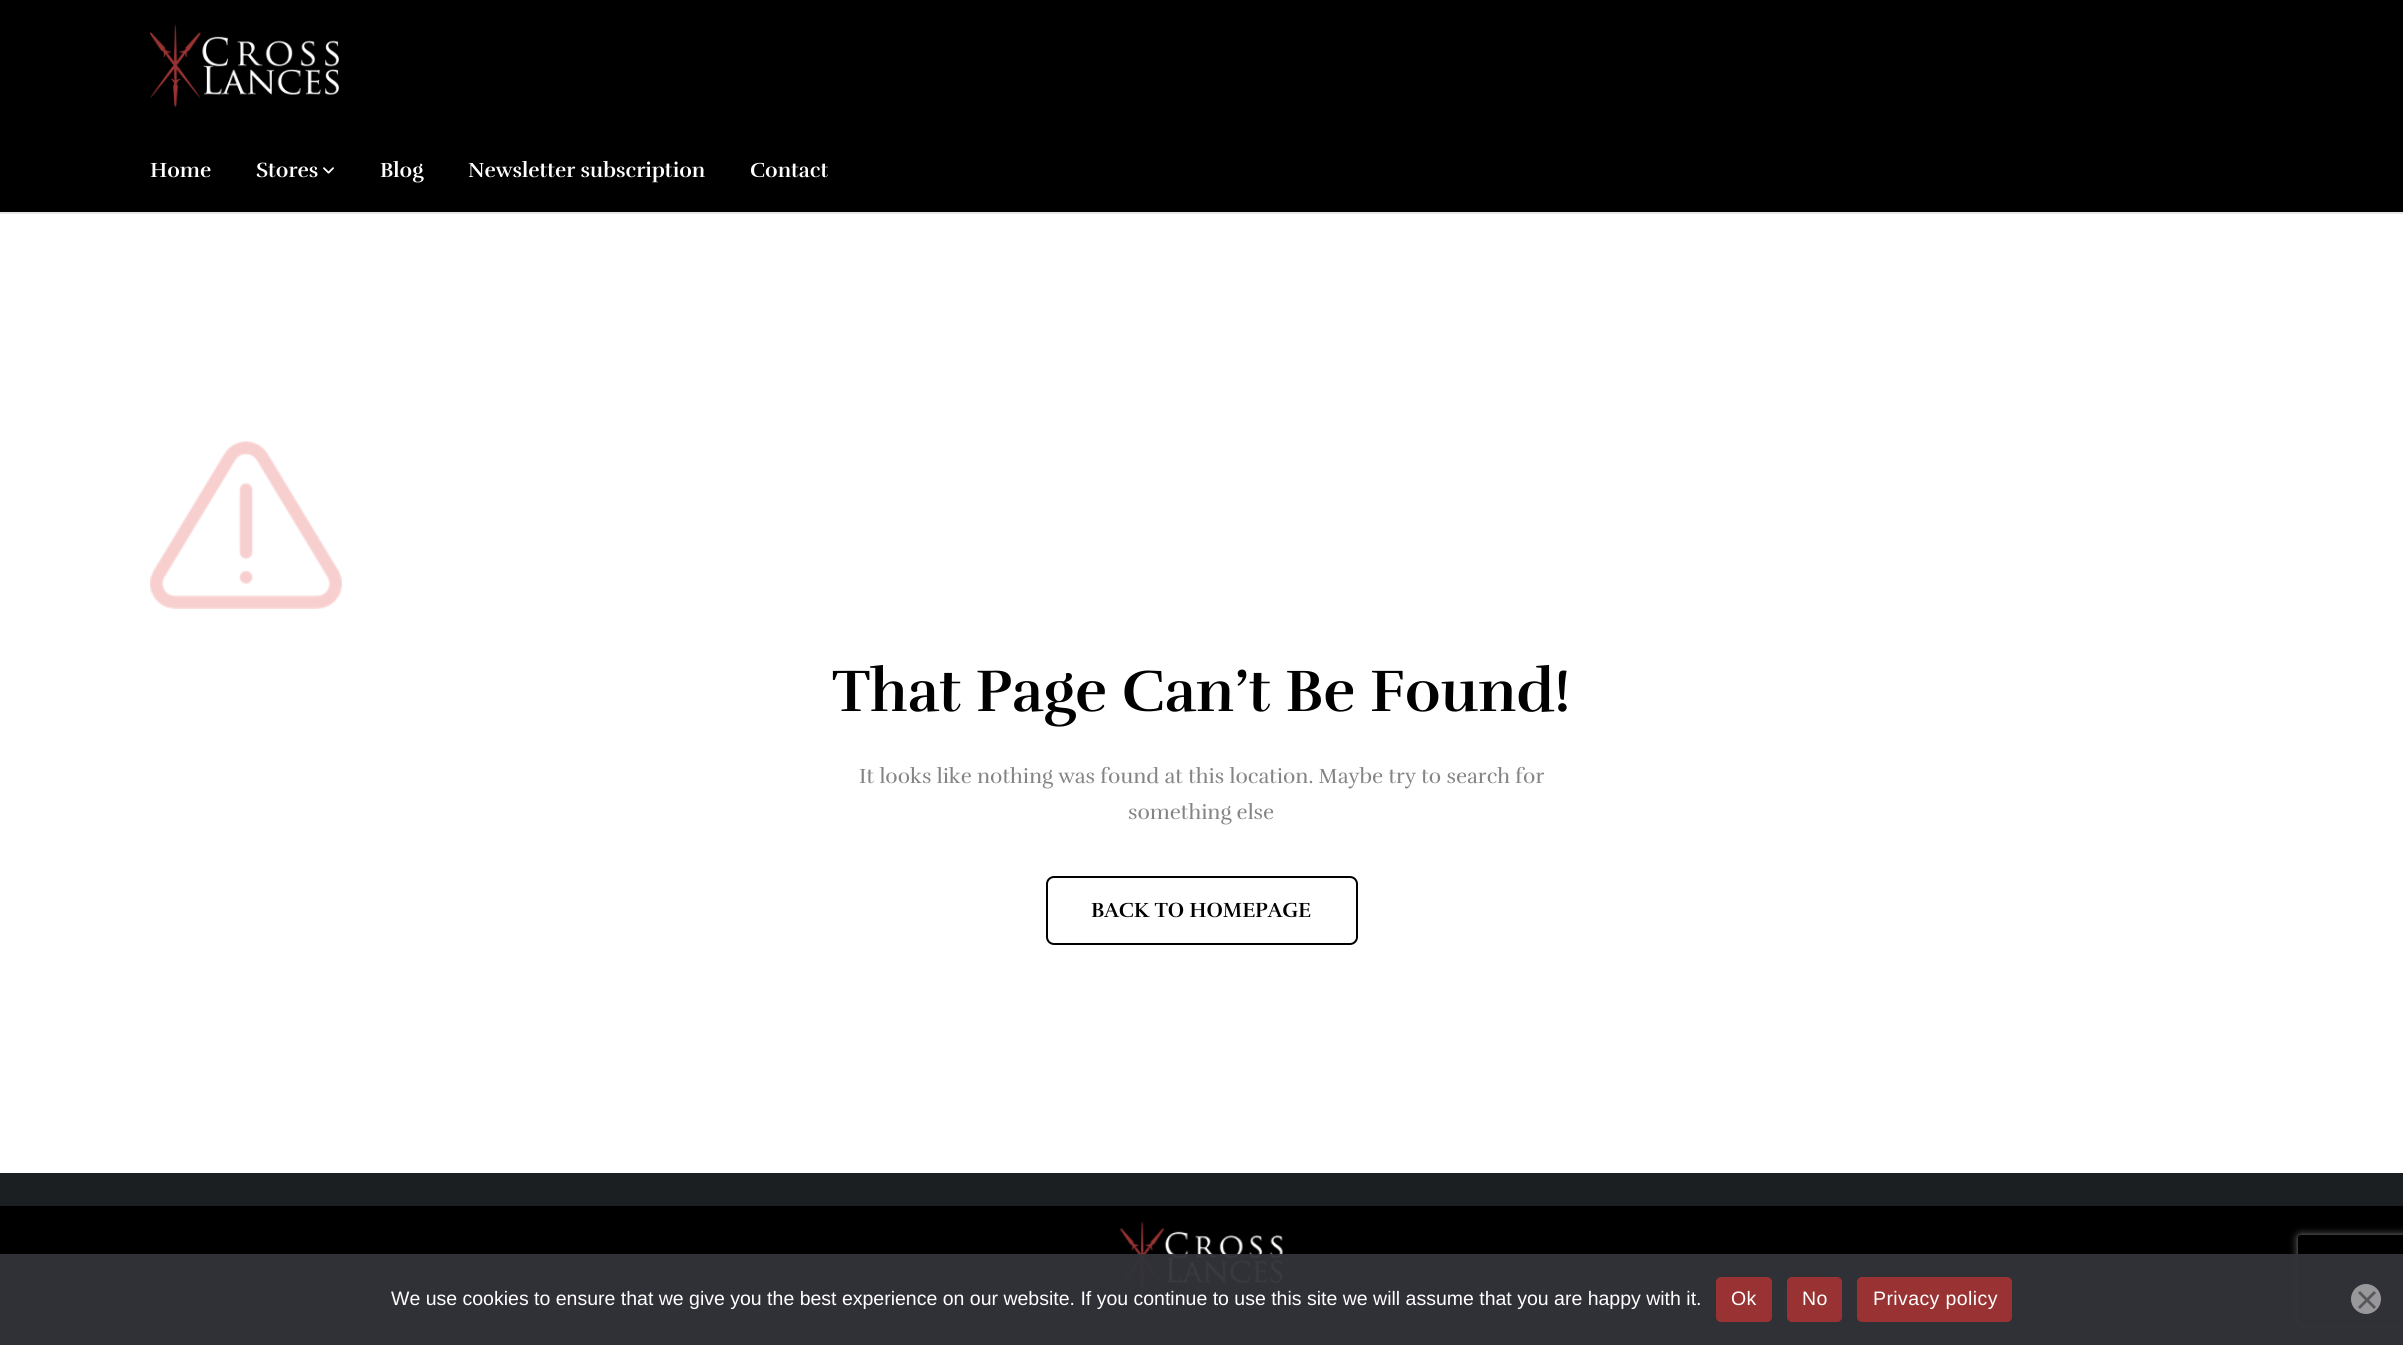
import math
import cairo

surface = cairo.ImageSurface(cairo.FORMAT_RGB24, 2403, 1345)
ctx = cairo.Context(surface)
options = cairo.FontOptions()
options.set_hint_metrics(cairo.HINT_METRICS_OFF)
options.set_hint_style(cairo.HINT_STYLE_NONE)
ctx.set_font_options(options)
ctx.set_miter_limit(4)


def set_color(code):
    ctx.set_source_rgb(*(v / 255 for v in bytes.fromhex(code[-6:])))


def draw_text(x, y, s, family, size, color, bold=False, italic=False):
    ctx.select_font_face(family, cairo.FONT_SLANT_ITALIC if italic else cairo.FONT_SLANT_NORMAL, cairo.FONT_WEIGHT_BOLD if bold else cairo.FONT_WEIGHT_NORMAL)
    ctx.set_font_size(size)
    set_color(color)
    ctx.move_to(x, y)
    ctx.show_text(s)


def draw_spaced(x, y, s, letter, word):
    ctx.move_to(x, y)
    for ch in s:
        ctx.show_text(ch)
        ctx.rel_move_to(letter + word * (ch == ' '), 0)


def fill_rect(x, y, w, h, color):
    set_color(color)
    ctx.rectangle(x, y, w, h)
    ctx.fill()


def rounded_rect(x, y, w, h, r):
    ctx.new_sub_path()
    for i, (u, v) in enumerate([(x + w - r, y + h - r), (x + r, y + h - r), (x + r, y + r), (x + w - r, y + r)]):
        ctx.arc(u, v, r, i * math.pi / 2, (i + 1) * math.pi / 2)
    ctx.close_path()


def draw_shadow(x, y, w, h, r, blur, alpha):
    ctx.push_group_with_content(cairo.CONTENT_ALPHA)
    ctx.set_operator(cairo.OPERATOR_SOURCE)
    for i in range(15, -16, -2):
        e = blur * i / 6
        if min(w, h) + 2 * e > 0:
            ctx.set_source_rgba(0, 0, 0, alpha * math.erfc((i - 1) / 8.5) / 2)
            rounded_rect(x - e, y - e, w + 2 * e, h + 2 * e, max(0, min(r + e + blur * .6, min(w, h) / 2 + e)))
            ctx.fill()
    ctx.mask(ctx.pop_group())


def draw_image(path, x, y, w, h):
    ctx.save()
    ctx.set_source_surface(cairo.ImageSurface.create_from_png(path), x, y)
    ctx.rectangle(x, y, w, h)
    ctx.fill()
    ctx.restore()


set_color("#ffffff")
ctx.paint()
fill_rect(0, 0, 2403, 212, "#000000")
draw_image("assets/img1.png", 150, 24, 189, 83)
fill_rect(0, 212, 2403, 2, "#e5e5e5")
draw_text(150, 177, "Home", "Rufina", 21, "#ffffff", bold=True)
draw_text(256, 177, "Stores", "Rufina", 21, "#ffffff", bold=True)
draw_image("assets/img2.png", 323, 167, 11, 7)
draw_text(380, 177, "Blog", "Rufina", 21, "#ffffff", bold=True)
draw_text(468, 177, "Newsletter subscription", "Rufina", 21, "#ffffff", bold=True)
draw_text(750, 177, "Contact", "Rufina", 21, "#ffffff", bold=True)
draw_image("assets/img3.png", 150, 441, 192, 168)
draw_text(832, 711, "That Page Can’t Be Found!", "Rufina", 60, "#000000", bold=True)
draw_text(859, 783, "It looks like nothing was found at this location. Maybe try to search for", "Rufina", 21, "#848484")
draw_text(1128, 819, "something else", "Rufina", 21, "#848484")
rounded_rect(1047, 877, 310, 67, 7)
set_color("#000000")
ctx.stroke()
draw_text(1091, 917, "BACK TO HOMEPAGE", "Rufina", 21, "#000000", bold=True)
fill_rect(0, 1173, 2403, 33, "#1b1f22")
fill_rect(0, 1206, 2403, 139, "#000000")
draw_image("assets/img4.png", 1120, 1221, 163, 72)
ctx.save()
ctx.set_fill_rule(cairo.FILL_RULE_EVEN_ODD)
ctx.new_path()
ctx.move_to(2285, 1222)
ctx.line_to(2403, 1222)
ctx.line_to(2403, 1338)
ctx.line_to(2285, 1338)
ctx.close_path()
ctx.move_to(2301, 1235)
ctx.line_to(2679, 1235)
ctx.curve_to(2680.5, 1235, 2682, 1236.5, 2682, 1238)
ctx.line_to(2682, 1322)
ctx.curve_to(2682, 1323.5, 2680.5, 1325, 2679, 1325)
ctx.line_to(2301, 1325)
ctx.curve_to(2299.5, 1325, 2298, 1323.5, 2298, 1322)
ctx.line_to(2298, 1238)
ctx.curve_to(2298, 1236.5, 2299.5, 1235, 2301, 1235)
ctx.close_path()
ctx.clip()
set_color("#808080")
draw_shadow(2298, 1235, 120, 90, 3, 4, 1)
ctx.restore()
ctx.set_source_rgba(0.196, 0.196, 0.227, 0.96)
ctx.rectangle(0, 1254, 2403, 91)
ctx.fill()
draw_text(391, 1305, "We use cookies to ensure that we give you the best experience on our website. If you continue to use this site we will assume that you are happy with it.", "Liberation Sans", 19.5, "#ffffff")
set_color("#993333")
rounded_rect(1716, 1277, 56, 45, 5)
ctx.fill()
set_color("#ffffff")
draw_spaced(1731, 1305, "Ok", 0.4, 0)
set_color("#993333")
rounded_rect(1787, 1277, 55, 45, 5)
ctx.fill()
set_color("#ffffff")
draw_spaced(1802, 1305, "No", 0.4, 0)
set_color("#993333")
rounded_rect(1857, 1277, 155, 45, 5)
ctx.fill()
set_color("#ffffff")
draw_spaced(1873, 1305, "Privacy policy", 0.4, 0)
set_color("#98989b")
ctx.new_path()
ctx.arc(2366, 1299, 15, 0, 2 * math.pi)
ctx.fill()
set_color("#58585c")
ctx.new_path()
ctx.move_to(2374, 1291)
ctx.line_to(2376, 1293)
ctx.line_to(2360, 1309)
ctx.line_to(2358, 1307)
ctx.close_path()
ctx.fill()
ctx.new_path()
ctx.move_to(2358, 1293)
ctx.line_to(2360, 1291)
ctx.line_to(2376, 1307)
ctx.line_to(2374, 1309)
ctx.close_path()
ctx.fill()
surface.write_to_png("output.png")
